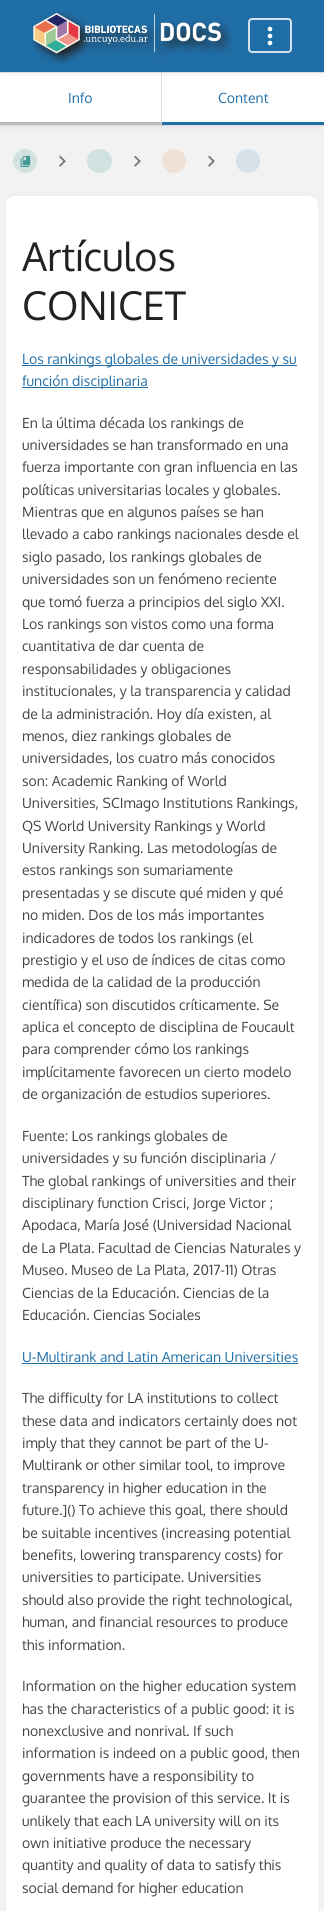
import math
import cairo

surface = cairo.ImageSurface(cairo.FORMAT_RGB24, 324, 1911)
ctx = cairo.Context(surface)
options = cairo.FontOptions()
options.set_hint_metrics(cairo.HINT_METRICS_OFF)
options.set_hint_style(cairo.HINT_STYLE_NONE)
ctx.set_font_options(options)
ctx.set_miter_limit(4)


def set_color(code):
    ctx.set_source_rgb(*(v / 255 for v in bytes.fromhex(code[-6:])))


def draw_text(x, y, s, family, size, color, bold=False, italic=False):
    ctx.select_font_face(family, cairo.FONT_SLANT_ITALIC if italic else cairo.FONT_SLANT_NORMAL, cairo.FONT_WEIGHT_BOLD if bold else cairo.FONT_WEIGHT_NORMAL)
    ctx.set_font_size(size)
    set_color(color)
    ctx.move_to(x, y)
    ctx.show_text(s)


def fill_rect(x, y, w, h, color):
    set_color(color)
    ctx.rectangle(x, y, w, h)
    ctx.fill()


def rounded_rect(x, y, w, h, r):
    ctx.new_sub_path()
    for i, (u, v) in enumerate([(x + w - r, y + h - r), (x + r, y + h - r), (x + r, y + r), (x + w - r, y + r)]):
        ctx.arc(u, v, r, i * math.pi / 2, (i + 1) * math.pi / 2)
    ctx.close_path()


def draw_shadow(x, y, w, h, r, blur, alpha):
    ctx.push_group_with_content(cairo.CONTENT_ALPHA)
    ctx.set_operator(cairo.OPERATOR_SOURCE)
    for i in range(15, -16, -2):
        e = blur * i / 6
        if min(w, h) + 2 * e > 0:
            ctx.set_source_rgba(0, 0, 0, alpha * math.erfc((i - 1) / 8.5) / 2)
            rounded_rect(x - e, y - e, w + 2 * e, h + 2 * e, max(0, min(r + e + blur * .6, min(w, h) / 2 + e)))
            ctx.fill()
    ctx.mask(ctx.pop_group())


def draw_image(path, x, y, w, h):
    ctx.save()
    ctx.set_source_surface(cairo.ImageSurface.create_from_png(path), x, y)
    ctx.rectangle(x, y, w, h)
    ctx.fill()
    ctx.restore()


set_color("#f2f2f2")
ctx.paint()
set_color("#000000")
draw_shadow(1, 75, 322, 51, 0, 3, 0.1)
fill_rect(0, 73, 324, 52, "#ffffff")
set_color("#dddddd")
ctx.new_path()
ctx.move_to(162, 73)
ctx.line_to(162, 125)
ctx.line_to(161, 122)
ctx.line_to(161, 73)
ctx.close_path()
ctx.fill()
set_color("#000000")
draw_shadow(1, 2, 322, 71, 0, 3, 0.1)
fill_rect(0, 0, 324, 72, "#206ea7")
fill_rect(0, 72, 324, 1, "#dddddd")
draw_image("assets/img1.png", 30, 11, 203, 54)
rounded_rect(249, 19, 42, 33, 3)
set_color("#d2e2ed")
ctx.stroke()
draw_image("assets/img2.png", 267, 26, 6, 20)
fill_rect(0, 125, 324, 1, "#dddddd")
set_color("#bbbbbb")
ctx.new_path()
ctx.move_to(162, 125)
ctx.line_to(0, 125)
ctx.line_to(0, 122)
ctx.line_to(161, 122)
ctx.close_path()
ctx.fill()
draw_text(68, 103, "Info", "Oxygen", 14, "#206ea7")
fill_rect(162, 122, 162, 3, "#206ea7")
draw_text(218, 103, "Content", "Oxygen", 14, "#206ea7")
draw_image("assets/img3.png", 20, 155, 11, 12)
ctx.set_source_rgba(0.027, 0.482, 0.439, 0.14)
ctx.arc(25, 161, 12, 0, 2 * math.pi)
ctx.fill()
draw_image("assets/img4.png", 59, 155, 7, 12)
set_color("#d1e1e0")
rounded_rect(87, 149, 25, 24, 12)
ctx.fill()
draw_image("assets/img4.png", 134, 155, 7, 12)
set_color("#f1e0d4")
ctx.arc(174, 161, 12, 0, 2 * math.pi)
ctx.fill()
draw_image("assets/img4.png", 208, 155, 7, 12)
set_color("#d5e0e8")
ctx.arc(248, 161, 12, 0, 2 * math.pi)
ctx.fill()
ctx.save()
ctx.rectangle(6, 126, 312, 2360)
ctx.clip()
set_color("#000000")
draw_shadow(7, 198, 310, 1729, 7, 3, 0.1)
ctx.restore()
set_color("#ffffff")
rounded_rect(6, 196, 312, 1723, 8)
ctx.fill()
draw_text(22, 271, "Artículos", "Oxygen", 39.5, "#222222")
draw_text(22, 320, "CONICET", "Oxygen", 39.5, "#222222")
fill_rect(22, 365, 275, 1, "#206ea7")
draw_text(22, 364, "Los rankings globales de universidades y su", "Oxygen", 14, "#206ea7")
fill_rect(22, 387, 126, 1, "#206ea7")
draw_text(22, 386, "función disciplinaria", "Oxygen", 14, "#206ea7")
draw_text(22, 428, "En la última década los rankings de", "Oxygen", 14, "#444444")
draw_text(22, 450, "universidades se han transformado en una", "Oxygen", 14, "#444444")
draw_text(22, 472, "fuerza importante con gran influencia en las", "Oxygen", 14, "#444444")
draw_text(22, 495, "políticas universitarias locales y globales.", "Oxygen", 14, "#444444")
draw_text(22, 517, "Mientras que en algunos países se han", "Oxygen", 14, "#444444")
draw_text(22, 539, "llevado a cabo rankings nacionales desde el", "Oxygen", 14, "#444444")
draw_text(22, 562, "siglo pasado, los rankings globales de", "Oxygen", 14, "#444444")
draw_text(22, 584, "universidades son un fenómeno reciente", "Oxygen", 14, "#444444")
draw_text(22, 607, "que tomó fuerza a principios del siglo XXI.", "Oxygen", 14, "#444444")
draw_text(22, 629, "Los rankings son vistos como una forma", "Oxygen", 14, "#444444")
draw_text(22, 651, "cuantitativa de dar cuenta de", "Oxygen", 14, "#444444")
draw_text(22, 674, "responsabilidades y obligaciones", "Oxygen", 14, "#444444")
draw_text(22, 696, "institucionales, y la transparencia y calidad", "Oxygen", 14, "#444444")
draw_text(22, 719, "de la administración. Hoy día existen, al", "Oxygen", 14, "#444444")
draw_text(22, 741, "menos, diez rankings globales de", "Oxygen", 14, "#444444")
draw_text(22, 763, "universidades, los cuatro más conocidos", "Oxygen", 14, "#444444")
draw_text(22, 786, "son: Academic Ranking of World", "Oxygen", 14, "#444444")
draw_text(22, 808, "Universities, SCImago Institutions Rankings,", "Oxygen", 14, "#444444")
draw_text(22, 831, "QS World University Rankings y World", "Oxygen", 14, "#444444")
draw_text(22, 853, "University Ranking. Las metodologías de", "Oxygen", 14, "#444444")
draw_text(22, 875, "estos rankings son sumariamente", "Oxygen", 14, "#444444")
draw_text(22, 898, "presentadas y se discute qué miden y qué", "Oxygen", 14, "#444444")
draw_text(22, 920, "no miden. Dos de los más importantes", "Oxygen", 14, "#444444")
draw_text(22, 943, "indicadores de todos los rankings (el", "Oxygen", 14, "#444444")
draw_text(22, 965, "prestigio y el uso de índices de citas como", "Oxygen", 14, "#444444")
draw_text(22, 987, "medida de la calidad de la producción", "Oxygen", 14, "#444444")
draw_text(22, 1010, "científica) son discutidos críticamente. Se", "Oxygen", 14, "#444444")
draw_text(22, 1032, "aplica el concepto de disciplina de Foucault", "Oxygen", 14, "#444444")
draw_text(22, 1054, "para comprender cómo los rankings", "Oxygen", 14, "#444444")
draw_text(22, 1077, "implícitamente favorecen un cierto modelo", "Oxygen", 14, "#444444")
draw_text(22, 1099, "de organización de estudios superiores.", "Oxygen", 14, "#444444")
draw_text(22, 1141, "Fuente: Los rankings globales de", "Oxygen", 14, "#444444")
draw_text(22, 1163, "universidades y su función disciplinaria /", "Oxygen", 14, "#444444")
draw_text(22, 1186, "The global rankings of universities and their", "Oxygen", 14, "#444444")
draw_text(22, 1208, "disciplinary function Crisci, Jorge Victor ;", "Oxygen", 14, "#444444")
draw_text(22, 1230, "Apodaca, María José (Universidad Nacional", "Oxygen", 14, "#444444")
draw_text(22, 1253, "de La Plata. Facultad de Ciencias Naturales y", "Oxygen", 14, "#444444")
draw_text(22, 1275, "Museo. Museo de La Plata, 2017-11) Otras", "Oxygen", 14, "#444444")
draw_text(22, 1298, "Ciencias de la Educación. Ciencias de la", "Oxygen", 14, "#444444")
draw_text(22, 1320, "Educación. Ciencias Sociales", "Oxygen", 14, "#444444")
draw_text(22, 1362, "U-Multirank and Latin American Universities", "Oxygen", 14, "#206ea7")
fill_rect(22, 1363, 276, 1, "#206ea7")
draw_text(22, 1403, "The difficulty for LA institutions to collect", "Oxygen", 14, "#444444")
draw_text(22, 1426, "these data and indicators certainly does not", "Oxygen", 14, "#444444")
draw_text(22, 1448, "imply that they cannot be part of the U-", "Oxygen", 14, "#444444")
draw_text(22, 1470, "Multirank or other similar tool, to improve", "Oxygen", 14, "#444444")
draw_text(22, 1493, "transparency in higher education in the", "Oxygen", 14, "#444444")
draw_text(22, 1515, "future.]() To achieve this goal, there should", "Oxygen", 14, "#444444")
draw_text(22, 1538, "be suitable incentives (increasing potential", "Oxygen", 14, "#444444")
draw_text(22, 1560, "benefits, lowering transparency costs) for", "Oxygen", 14, "#444444")
draw_text(22, 1582, "universities to participate. Universities", "Oxygen", 14, "#444444")
draw_text(22, 1605, "should also provide the right technological,", "Oxygen", 14, "#444444")
draw_text(22, 1627, "human, and financial resources to produce", "Oxygen", 14, "#444444")
draw_text(22, 1650, "this information.", "Oxygen", 14, "#444444")
draw_text(22, 1691, "Information on the higher education system", "Oxygen", 14, "#444444")
draw_text(22, 1714, "has the characteristics of a public good: it is", "Oxygen", 14, "#444444")
draw_text(22, 1736, "nonexclusive and nonrival. If such", "Oxygen", 14, "#444444")
draw_text(22, 1758, "information is indeed on a public good, then", "Oxygen", 14, "#444444")
draw_text(22, 1781, "governments have a responsibility to", "Oxygen", 14, "#444444")
draw_text(22, 1803, "guarantee the provision of this service. It is", "Oxygen", 14, "#444444")
draw_text(22, 1826, "unlikely that each LA university will on its", "Oxygen", 14, "#444444")
draw_text(22, 1848, "own initiative produce the necessary", "Oxygen", 14, "#444444")
draw_text(22, 1870, "quantity and quality of data to satisfy this", "Oxygen", 14, "#444444")
draw_text(22, 1893, "social demand for higher education", "Oxygen", 14, "#444444")
surface.write_to_png("output.png")
